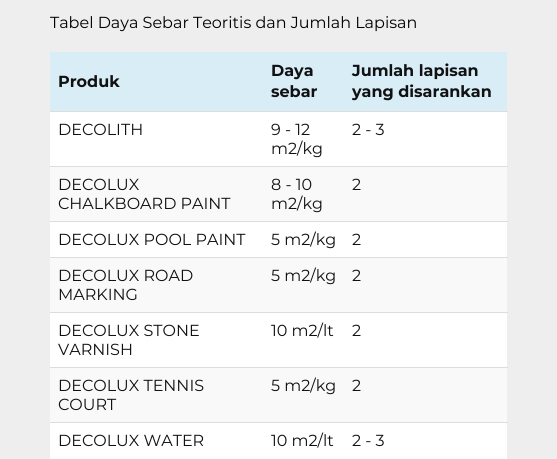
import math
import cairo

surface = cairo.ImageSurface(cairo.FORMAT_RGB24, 557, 459)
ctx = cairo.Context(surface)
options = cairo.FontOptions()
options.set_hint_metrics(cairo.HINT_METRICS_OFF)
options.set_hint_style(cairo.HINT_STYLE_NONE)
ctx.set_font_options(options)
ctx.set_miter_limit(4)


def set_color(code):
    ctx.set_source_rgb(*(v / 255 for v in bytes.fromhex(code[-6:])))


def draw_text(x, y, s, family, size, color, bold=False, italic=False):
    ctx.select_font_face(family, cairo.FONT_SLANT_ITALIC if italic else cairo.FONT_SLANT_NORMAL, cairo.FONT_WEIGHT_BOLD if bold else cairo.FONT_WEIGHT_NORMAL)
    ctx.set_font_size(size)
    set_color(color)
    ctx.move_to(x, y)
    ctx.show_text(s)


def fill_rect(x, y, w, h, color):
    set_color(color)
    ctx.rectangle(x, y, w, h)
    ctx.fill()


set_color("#eeeeee")
ctx.paint()
draw_text(50, 28, "Tabel Daya Sebar Teoritis dan Jumlah Lapisan", "Montserrat", 16, "#000000")
fill_rect(50, 52, 457, 59, "#d9edf7")
draw_text(58, 87, "Produk", "Montserrat", 16, "#111111", bold=True)
draw_text(271, 76, "Daya", "Montserrat", 16, "#111111", bold=True)
draw_text(271, 97, "sebar", "Montserrat", 16, "#111111", bold=True)
draw_text(352, 76, "Jumlah lapisan", "Montserrat", 16, "#111111", bold=True)
draw_text(352, 97, "yang disarankan", "Montserrat", 16, "#111111", bold=True)
fill_rect(50, 112, 457, 54, "#ffffff")
draw_text(58, 135, "DECOLITH", "Montserrat", 16, "#111111")
draw_text(271, 135, "9 - 12", "Montserrat", 16, "#111111")
draw_text(271, 154, "m2/kg", "Montserrat", 16, "#111111")
fill_rect(50, 111, 458, 1, "#dddddd")
draw_text(352, 135, "2 - 3", "Montserrat", 16, "#111111")
fill_rect(50, 167, 457, 54, "#f9f9f9")
draw_text(58, 190, "DECOLUX", "Montserrat", 16, "#111111")
draw_text(58, 209, "CHALKBOARD PAINT", "Montserrat", 16, "#111111")
draw_text(271, 190, "8 - 10", "Montserrat", 16, "#111111")
draw_text(271, 209, "m2/kg", "Montserrat", 16, "#111111")
fill_rect(50, 166, 458, 1, "#dddddd")
draw_text(352, 190, "2", "Montserrat", 16, "#111111")
fill_rect(50, 222, 457, 35, "#ffffff")
draw_text(58, 245, "DECOLUX POOL PAINT", "Montserrat", 16, "#111111")
draw_text(271, 245, "5 m2/kg", "Montserrat", 16, "#111111")
fill_rect(50, 221, 458, 1, "#dddddd")
draw_text(352, 245, "2", "Montserrat", 16, "#111111")
fill_rect(50, 258, 457, 54, "#f9f9f9")
draw_text(58, 281, "DECOLUX ROAD", "Montserrat", 16, "#111111")
draw_text(58, 300, "MARKING", "Montserrat", 16, "#111111")
draw_text(271, 281, "5 m2/kg", "Montserrat", 16, "#111111")
fill_rect(50, 257, 458, 1, "#dddddd")
draw_text(352, 281, "2", "Montserrat", 16, "#111111")
fill_rect(50, 313, 457, 54, "#ffffff")
draw_text(58, 336, "DECOLUX STONE", "Montserrat", 16, "#111111")
draw_text(58, 355, "VARNISH", "Montserrat", 16, "#111111")
draw_text(271, 336, "10 m2/lt", "Montserrat", 16, "#111111")
fill_rect(50, 312, 458, 1, "#dddddd")
draw_text(352, 336, "2", "Montserrat", 16, "#111111")
fill_rect(50, 368, 457, 54, "#f9f9f9")
draw_text(58, 391, "DECOLUX TENNIS", "Montserrat", 16, "#111111")
draw_text(58, 410, "COURT", "Montserrat", 16, "#111111")
draw_text(271, 391, "5 m2/kg", "Montserrat", 16, "#111111")
fill_rect(50, 367, 458, 1, "#dddddd")
draw_text(352, 391, "2", "Montserrat", 16, "#111111")
fill_rect(50, 423, 457, 36, "#ffffff")
draw_text(58, 446, "DECOLUX WATER", "Montserrat", 16, "#111111")
draw_text(271, 446, "10 m2/lt", "Montserrat", 16, "#111111")
fill_rect(50, 422, 458, 1, "#dddddd")
draw_text(352, 446, "2 - 3", "Montserrat", 16, "#111111")
surface.write_to_png("output.png")
